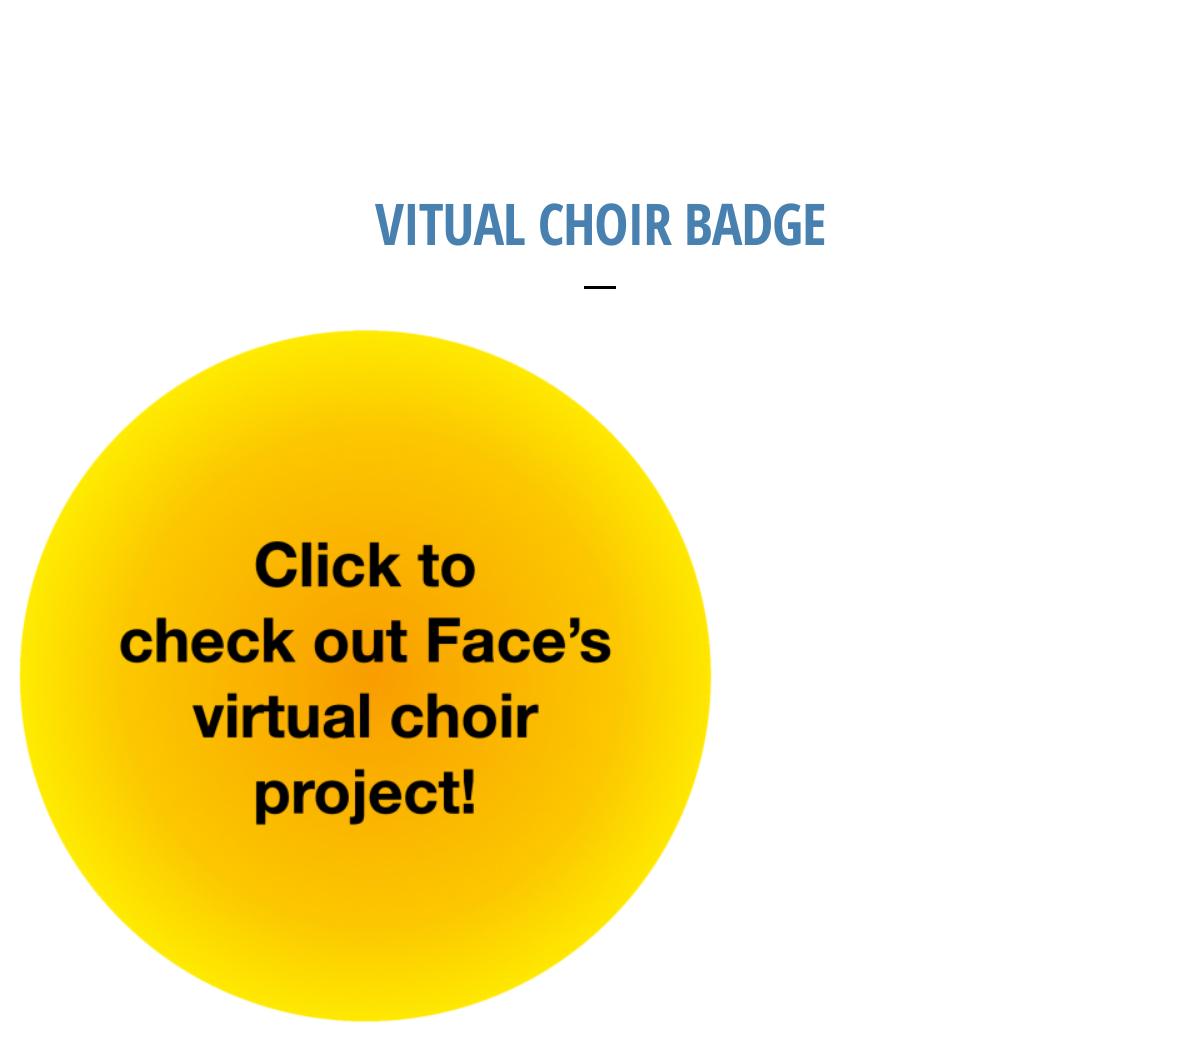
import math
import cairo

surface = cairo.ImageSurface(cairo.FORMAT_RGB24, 1200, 1052)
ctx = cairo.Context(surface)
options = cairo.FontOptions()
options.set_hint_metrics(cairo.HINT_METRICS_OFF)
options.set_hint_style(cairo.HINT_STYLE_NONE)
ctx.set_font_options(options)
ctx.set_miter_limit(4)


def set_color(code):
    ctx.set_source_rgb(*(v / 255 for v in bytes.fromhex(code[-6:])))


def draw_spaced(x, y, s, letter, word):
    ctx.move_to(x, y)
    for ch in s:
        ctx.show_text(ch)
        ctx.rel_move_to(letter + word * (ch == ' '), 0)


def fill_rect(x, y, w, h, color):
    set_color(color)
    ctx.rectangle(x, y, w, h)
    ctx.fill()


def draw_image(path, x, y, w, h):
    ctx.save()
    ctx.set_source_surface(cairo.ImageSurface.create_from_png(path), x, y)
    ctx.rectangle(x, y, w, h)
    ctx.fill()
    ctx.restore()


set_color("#ffffff")
ctx.paint()
ctx.select_font_face("Open Sans Condensed", cairo.FONT_SLANT_NORMAL, cairo.FONT_WEIGHT_BOLD)
ctx.set_font_size(57.5)
set_color("#4880b0")
draw_spaced(375, 245, "VITUAL CHOIR BADGE", -1.25, 0)
fill_rect(584, 286, 32, 3, "#000000")
draw_image("assets/img1.png", 18, 329, 694, 694)
surface.write_to_png("output.png")
